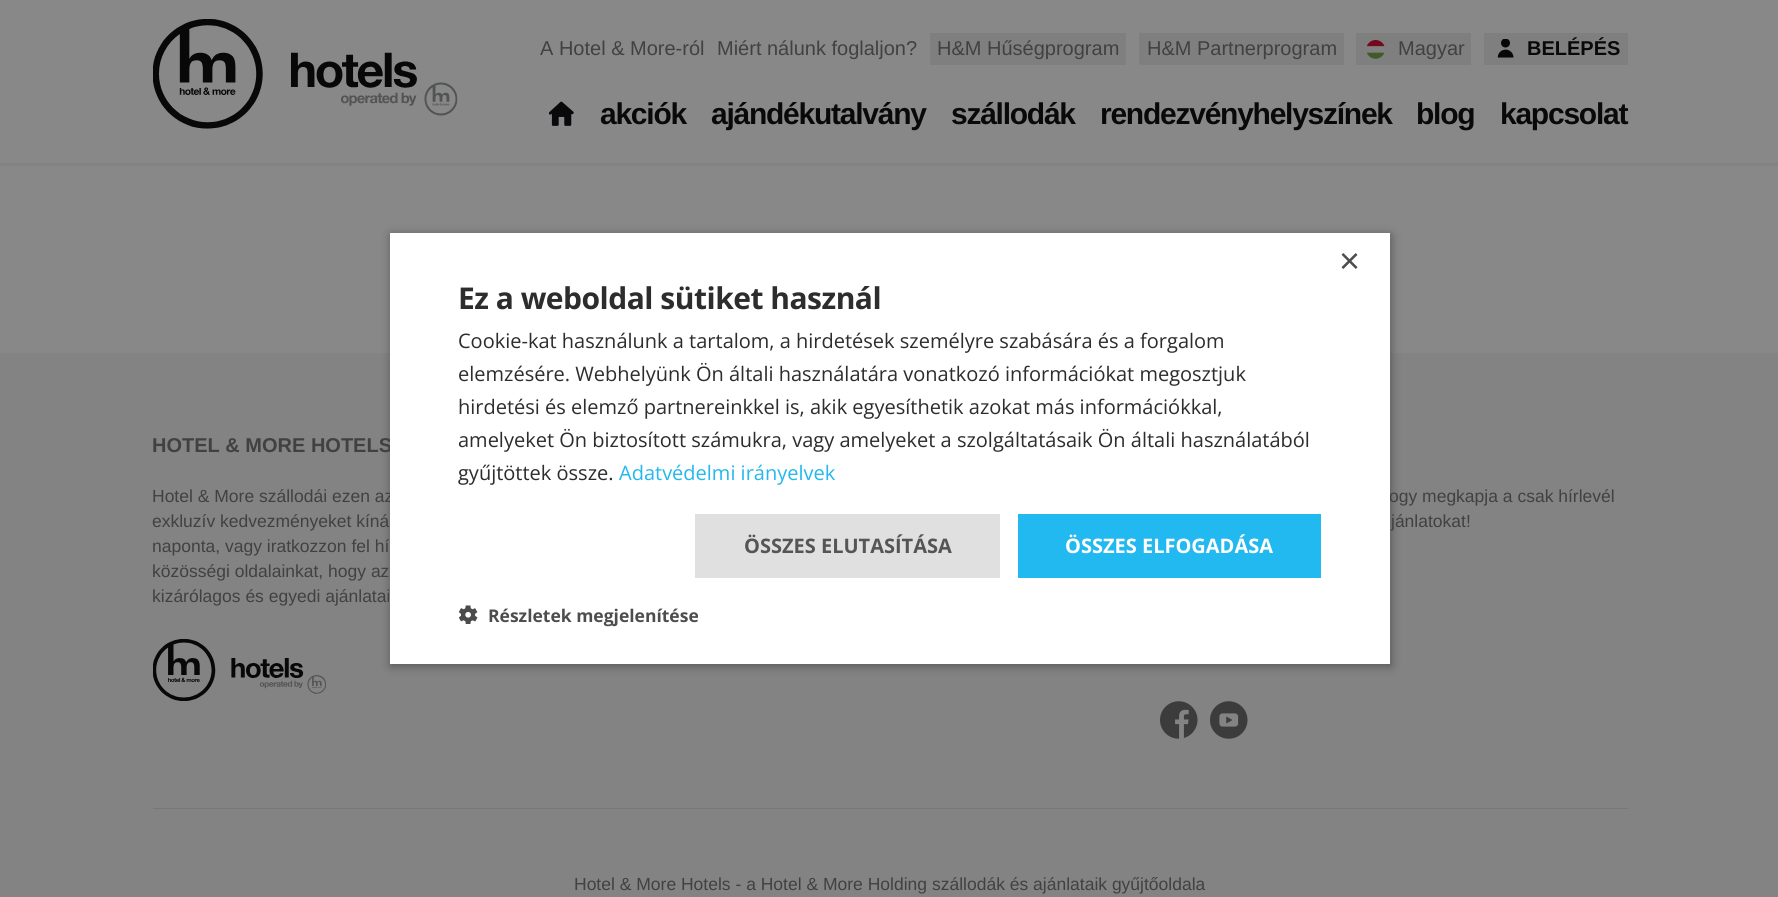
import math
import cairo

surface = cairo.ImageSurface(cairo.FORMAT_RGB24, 1778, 897)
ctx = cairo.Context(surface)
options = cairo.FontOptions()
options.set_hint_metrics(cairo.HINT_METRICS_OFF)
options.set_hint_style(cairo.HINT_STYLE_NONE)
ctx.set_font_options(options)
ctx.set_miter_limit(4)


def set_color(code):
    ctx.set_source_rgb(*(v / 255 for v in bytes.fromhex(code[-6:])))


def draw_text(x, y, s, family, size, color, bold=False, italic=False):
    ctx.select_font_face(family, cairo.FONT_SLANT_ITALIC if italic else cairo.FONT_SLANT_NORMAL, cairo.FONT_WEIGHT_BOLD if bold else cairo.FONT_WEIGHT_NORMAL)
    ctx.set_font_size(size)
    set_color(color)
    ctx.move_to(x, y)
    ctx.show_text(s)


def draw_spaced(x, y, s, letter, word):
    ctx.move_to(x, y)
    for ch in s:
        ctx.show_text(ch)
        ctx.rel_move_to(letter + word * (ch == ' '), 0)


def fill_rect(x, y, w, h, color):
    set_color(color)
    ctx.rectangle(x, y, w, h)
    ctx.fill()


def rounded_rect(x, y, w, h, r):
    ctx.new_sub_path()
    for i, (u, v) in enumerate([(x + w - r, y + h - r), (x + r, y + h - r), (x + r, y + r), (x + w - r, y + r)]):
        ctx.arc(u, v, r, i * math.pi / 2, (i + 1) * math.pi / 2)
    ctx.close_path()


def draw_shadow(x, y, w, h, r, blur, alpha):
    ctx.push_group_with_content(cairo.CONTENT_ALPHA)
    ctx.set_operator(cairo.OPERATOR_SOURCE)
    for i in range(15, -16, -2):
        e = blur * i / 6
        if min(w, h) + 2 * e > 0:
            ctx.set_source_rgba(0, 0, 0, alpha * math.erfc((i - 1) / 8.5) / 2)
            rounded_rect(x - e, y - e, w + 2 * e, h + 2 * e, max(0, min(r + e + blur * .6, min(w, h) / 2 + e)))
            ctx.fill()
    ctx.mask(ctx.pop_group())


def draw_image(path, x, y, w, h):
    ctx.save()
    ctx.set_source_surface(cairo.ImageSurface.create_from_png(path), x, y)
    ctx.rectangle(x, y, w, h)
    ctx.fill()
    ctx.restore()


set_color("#888888")
ctx.paint()
fill_rect(0, 163, 1778, 3, "#838383")
draw_image("assets/img1.png", 153, 19, 305, 110)
draw_text(540, 55, "A Hotel & More-ról", "Liberation Sans", 20, "#414141")
draw_text(717, 55, "Miért nálunk foglaljon?", "Liberation Sans", 20, "#414141")
fill_rect(930, 33, 196, 32, "#7f7f7f")
draw_text(937, 55, "H&M Hűségprogram", "Liberation Sans", 20, "#414141")
fill_rect(1139, 33, 205, 32, "#7f7f7f")
draw_text(1147, 55, "H&M Partnerprogram", "Liberation Sans", 20, "#414141")
fill_rect(1356, 33, 115, 32, "#7f7f7f")
draw_image("assets/img2.png", 1366, 40, 19, 19)
draw_text(1398, 55, "Magyar", "Liberation Sans", 20, "#414141")
fill_rect(1484, 33, 144, 32, "#7f7f7f")
draw_image("assets/img3.png", 1497, 39, 17, 19)
draw_text(1527, 55, "BELÉPÉS", "Liberation Sans", 20, "#090909", bold=True)
draw_image("assets/img4.png", 549, 101, 25, 25)
ctx.set_font_size(30)
draw_spaced(600, 124, "akciók", -1.25, 0)
draw_spaced(711, 124, "ajándékutalvány", -1.25, 0)
draw_spaced(951, 124, "szállodák", -1.25, 0)
draw_spaced(1100, 124, "rendezvényhelyszínek", -1.25, 0)
draw_spaced(1416, 124, "blog", -1.25, 0)
draw_spaced(1500, 124, "kapcsolat", -1.25, 0)
fill_rect(0, 353, 1778, 544, "#838383")
set_color("#000000")
draw_shadow(391, 235, 1000, 431, 0, 5, 0.35)
draw_text(152, 452, "HOTEL & MORE HOTELS", "Liberation Sans", 20, "#414141", bold=True)
draw_text(152, 502, "Hotel & More szállodái ezen az", "Liberation Sans", 17.5, "#414141")
draw_text(1389, 502, "ogy megkapja a csak hírlevél", "Liberation Sans", 17.5, "#414141")
fill_rect(390, 233, 1000, 431, "#ffffff")
draw_text(1339, 273, "×", "Liberation Sans", 36, "#4d4d4d")
ctx.select_font_face("Open Sans", cairo.FONT_SLANT_NORMAL, cairo.FONT_WEIGHT_BOLD)
ctx.set_font_size(30)
set_color("#2d2d2d")
draw_spaced(458, 309, "Ez a weboldal sütiket használ", -0.5, 0)
draw_text(458, 348, "Cookie-kat használunk a tartalom, a hirdetések személyre szabására és a forgalom", "Open Sans", 20, "#2d2d2d")
draw_text(458, 381, "elemzésére. Webhelyünk Ön általi használatára vonatkozó információkat megosztjuk", "Open Sans", 20, "#2d2d2d")
draw_text(458, 414, "hirdetési és elemző partnereinkkel is, akik egyesíthetik azokat más információkkal,", "Open Sans", 20, "#2d2d2d")
draw_text(458, 447, "amelyeket Ön biztosított számukra, vagy amelyeket a szolgáltatásaik Ön általi használatából", "Open Sans", 20, "#2d2d2d")
draw_text(458, 480, "gyűjtöttek össze.", "Open Sans", 20, "#2d2d2d")
draw_text(619, 480, "Adatvédelmi irányelvek", "Open Sans", 20, "#22b8f0")
fill_rect(695, 514, 305, 64, "#e0e0e0")
draw_text(744, 553, "ÖSSZES ELUTASÍTÁSA", "Open Sans", 20, "#555555", bold=True)
fill_rect(1018, 514, 303, 64, "#22b8f0")
draw_text(1065, 553, "ÖSSZES ELFOGADÁSA", "Open Sans", 20, "#ffffff", bold=True)
draw_image("assets/img5.png", 459, 605, 19, 19)
draw_text(488, 622, "Részletek megjelenítése", "Open Sans", 17.5, "#4d4d4d", bold=True)
fill_rect(153, 808, 1475, 1, "#777777")
draw_text(152, 527, "exkluzív kedvezményeket kíná", "Liberation Sans", 17.5, "#414141")
draw_text(152, 552, "naponta, vagy iratkozzon fel hí", "Liberation Sans", 17.5, "#414141")
draw_text(152, 577, "közösségi oldalainkat, hogy az", "Liberation Sans", 17.5, "#414141")
draw_text(152, 602, "kizárólagos és egyedi ajánlatai", "Liberation Sans", 17.5, "#414141")
draw_image("assets/img6.png", 153, 639, 173, 62)
draw_text(1391, 527, "jánlatokat!", "Liberation Sans", 17.5, "#414141")
draw_image("assets/img7.png", 1160, 701, 38, 38)
draw_image("assets/img8.png", 1210, 701, 38, 38)
draw_text(574, 890, "Hotel & More Hotels - a Hotel & More Holding szállodák és ajánlataik gyűjtőoldala", "Liberation Sans", 17.5, "#414141")
surface.write_to_png("output.png")
